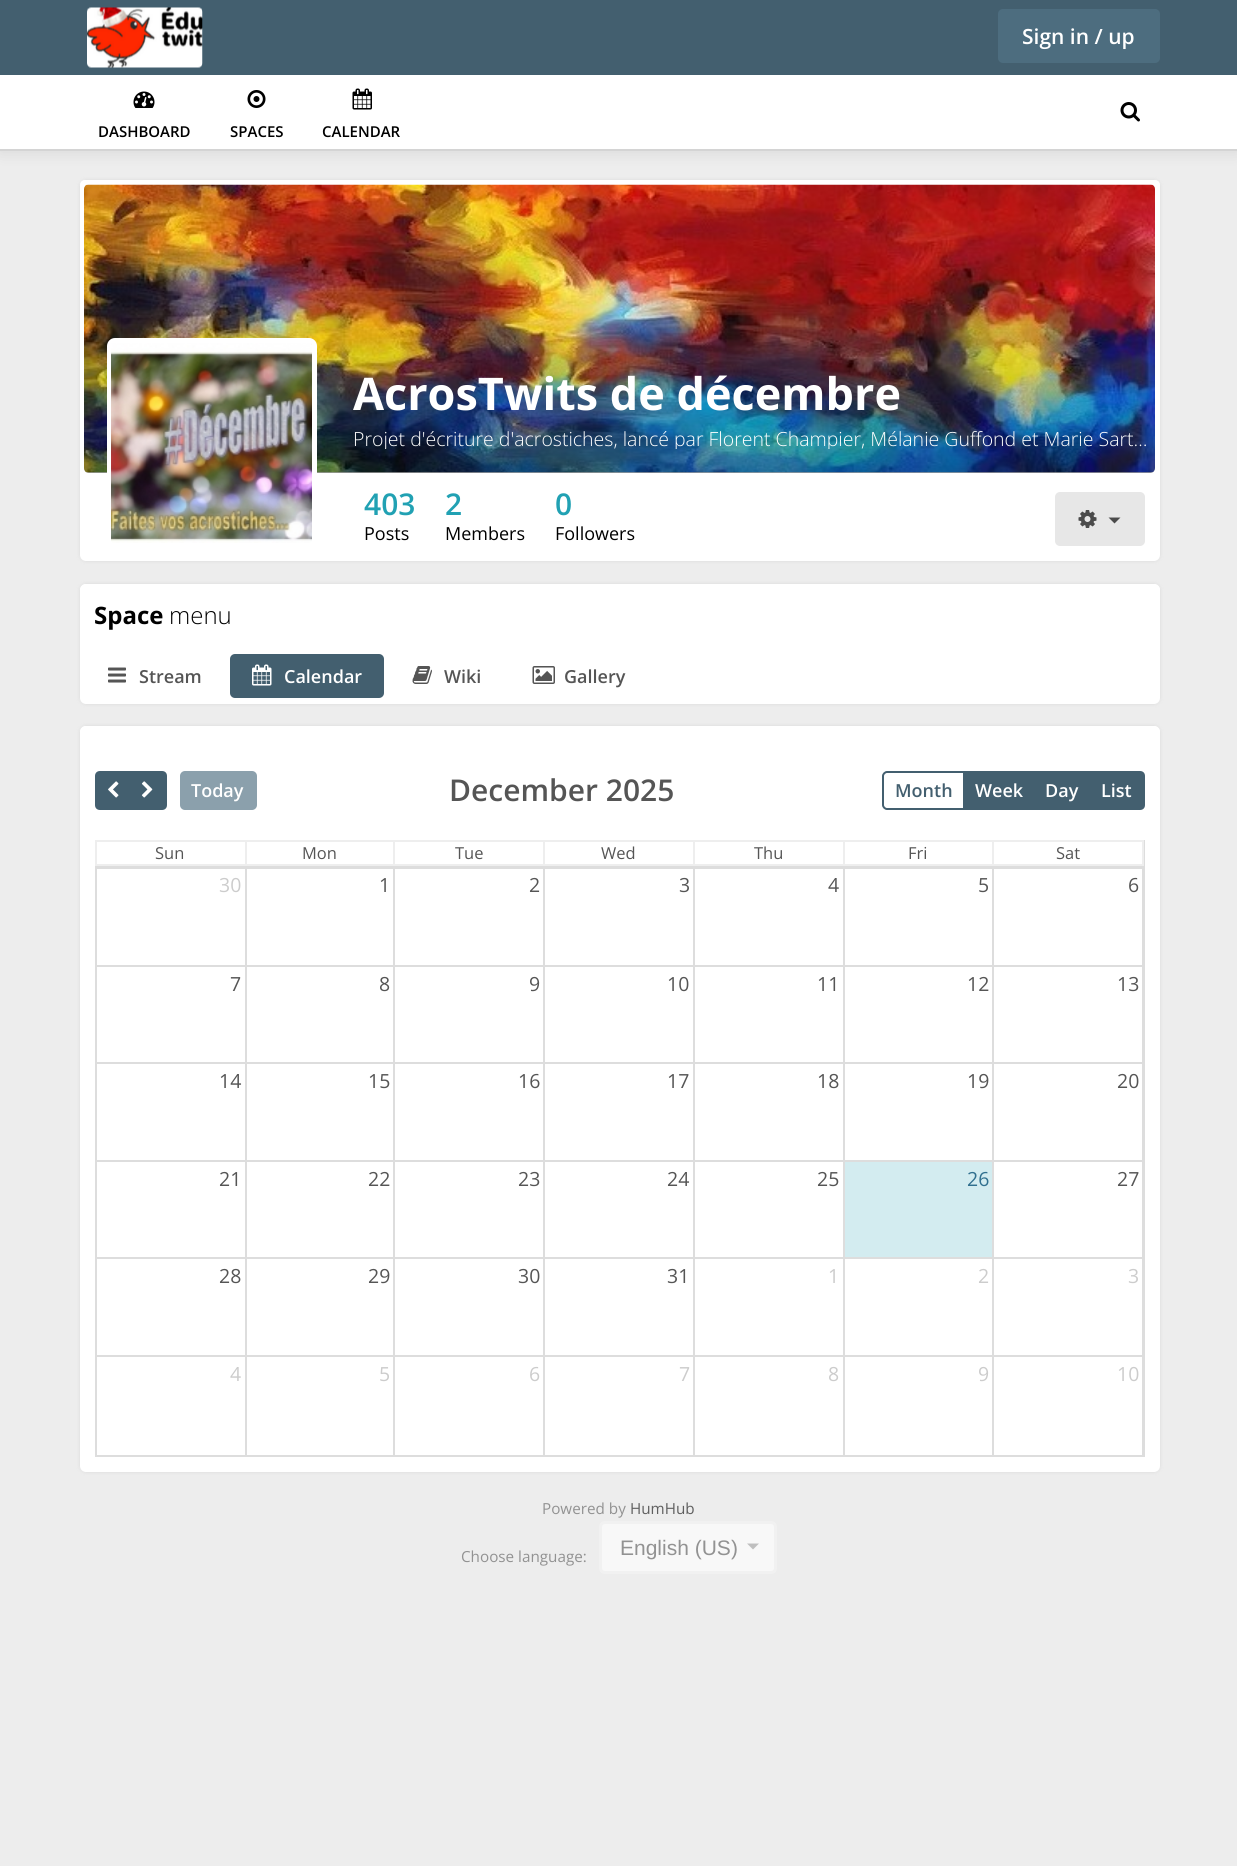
import math
import cairo

surface = cairo.ImageSurface(cairo.FORMAT_RGB24, 1237, 1866)
ctx = cairo.Context(surface)
options = cairo.FontOptions()
options.set_hint_metrics(cairo.HINT_METRICS_OFF)
options.set_hint_style(cairo.HINT_STYLE_NONE)
ctx.set_font_options(options)
ctx.set_miter_limit(4)


def set_color(code):
    ctx.set_source_rgb(*(v / 255 for v in bytes.fromhex(code[-6:])))


def draw_text(x, y, s, family, size, color, bold=False, italic=False):
    ctx.select_font_face(family, cairo.FONT_SLANT_ITALIC if italic else cairo.FONT_SLANT_NORMAL, cairo.FONT_WEIGHT_BOLD if bold else cairo.FONT_WEIGHT_NORMAL)
    ctx.set_font_size(size)
    set_color(color)
    ctx.move_to(x, y)
    ctx.show_text(s)


def fill_rect(x, y, w, h, color):
    set_color(color)
    ctx.rectangle(x, y, w, h)
    ctx.fill()


def rounded_rect(x, y, w, h, r):
    ctx.new_sub_path()
    for i, (u, v) in enumerate([(x + w - r, y + h - r), (x + r, y + h - r), (x + r, y + r), (x + w - r, y + r)]):
        ctx.arc(u, v, r, i * math.pi / 2, (i + 1) * math.pi / 2)
    ctx.close_path()


def draw_shadow(x, y, w, h, r, blur, alpha):
    ctx.push_group_with_content(cairo.CONTENT_ALPHA)
    ctx.set_operator(cairo.OPERATOR_SOURCE)
    for i in range(15, -16, -2):
        e = blur * i / 6
        if min(w, h) + 2 * e > 0:
            ctx.set_source_rgba(0, 0, 0, alpha * math.erfc((i - 1) / 8.5) / 2)
            rounded_rect(x - e, y - e, w + 2 * e, h + 2 * e, max(0, min(r + e + blur * .6, min(w, h) / 2 + e)))
            ctx.fill()
    ctx.mask(ctx.pop_group())


def draw_image(path, x, y, w, h):
    ctx.save()
    ctx.set_source_surface(cairo.ImageSurface.create_from_png(path), x, y)
    ctx.rectangle(x, y, w, h)
    ctx.fill()
    ctx.restore()


set_color("#ededed")
ctx.paint()
set_color("#000000")
draw_shadow(0, 77, 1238, 75, 0, 7.5, 0.1)
fill_rect(0, 0, 1237, 75, "#435f6f")
draw_image("assets/img1.png", 87, 7, 116, 61)
set_color("#4d6d7f")
rounded_rect(998, 9, 162, 54, 5)
ctx.fill()
draw_text(1022, 44, "Sign in / up", "Open Sans SemiBold", 21, "#ffffff")
fill_rect(0, 75, 1237, 74, "#ffffff")
fill_rect(0, 149, 1237, 2, "#d4d4d4")
draw_image("assets/img2.png", 1120, 102, 20, 20)
draw_image("assets/img3.png", 133, 91, 22, 17)
draw_text(98, 137, "DASHBOARD", "Open Sans SemiBold", 15, "#000000")
draw_image("assets/img4.png", 247, 90, 19, 18)
draw_text(230, 137, "SPACES", "Open Sans SemiBold", 15, "#000000")
draw_image("assets/img5.png", 352, 88, 20, 22)
draw_text(322, 137, "CALENDAR", "Open Sans SemiBold", 15, "#000000")
set_color("#dadada")
draw_shadow(80, 180, 1080, 381, 6, 2, 1)
set_color("#ffffff")
rounded_rect(80, 180, 1080, 381, 6)
ctx.fill()
ctx.new_path()
ctx.move_to(85, 182.5)
ctx.line_to(1155, 182.5)
ctx.curve_to(1156.5, 182.5, 1157.5, 183.5, 1157.5, 185)
ctx.line_to(1157.5, 474.5)
ctx.line_to(82.5, 474.5)
ctx.line_to(82.5, 185)
ctx.curve_to(82.5, 183.5, 83.5, 182.5, 85, 182.5)
ctx.close_path()
ctx.set_line_width(5)
ctx.stroke()
draw_image("assets/img7.png", 84, 184, 1071, 289)
gradient = cairo.LinearGradient(620, 322, 620, 473)
gradient.add_color_stop_rgba(0, 0, 0, 0, 0)
gradient.add_color_stop_rgba(0.01, 0, 0, 0, 0)
gradient.add_color_stop_rgba(1, 0, 0, 0, 0.38)
ctx.set_source(gradient)
ctx.new_path()
ctx.move_to(84, 323)
ctx.line_to(1155, 323)
ctx.line_to(1155, 468)
ctx.curve_to(1155, 471, 1153, 473, 1150, 473)
ctx.line_to(89, 473)
ctx.curve_to(86, 473, 84, 471, 84, 468)
ctx.close_path()
ctx.fill()
rounded_rect(109.5, 340.5, 205, 205, 5.5)
set_color("#ffffff")
ctx.stroke()
draw_image("assets/img6.png", 111, 343, 201, 200)
draw_text(353, 410, "AcrosTwits de décembre", "Open Sans", 45, "#ffffff", bold=True)
ctx.save()
ctx.rectangle(354, 428, 801, 21)
ctx.clip()
draw_text(353, 446, "Projet d'écriture d'acrostiches, lancé par Florent Champier, Mélanie Guffond et Marie Sart…", "Open Sans Light", 19.5, "#ffffff")
ctx.restore()
draw_text(364, 515, "403", "Open Sans SemiBold", 30, "#21a1b3")
draw_text(364, 540, "Posts", "Open Sans", 18, "#000000")
draw_text(445, 515, "2", "Open Sans SemiBold", 30, "#21a1b3")
draw_text(445, 540, "Members", "Open Sans", 18, "#000000")
draw_text(555, 515, "0", "Open Sans SemiBold", 30, "#21a1b3")
draw_text(555, 540, "Followers", "Open Sans", 18, "#000000")
set_color("#e7e7e7")
rounded_rect(1055, 492, 90, 54, 5)
ctx.fill()
draw_image("assets/img8.png", 1078, 510, 19, 18)
set_color("#4b4b4b")
ctx.new_path()
ctx.move_to(1108.5, 517.5)
ctx.line_to(1120.5, 517.5)
ctx.line_to(1114.5, 523.5)
ctx.close_path()
ctx.fill()
set_color("#dadada")
draw_shadow(80, 584, 1080, 120, 6, 2, 1)
set_color("#ffffff")
rounded_rect(80, 584, 1080, 120, 6)
ctx.fill()
rounded_rect(80, 584, 1080, 64, 6)
ctx.fill()
draw_text(94, 624, "Space", "Open Sans", 24, "#000000", bold=True)
draw_text(169, 624, "menu", "Open Sans Light", 24, "#000000")
draw_image("assets/img9.png", 108, 667, 18, 16)
draw_text(139, 683, "Stream", "Open Sans SemiBold", 18, "#555555")
set_color("#435f6f")
rounded_rect(230, 654, 154, 44, 5)
ctx.fill()
draw_image("assets/img10.png", 252, 664, 20, 22)
draw_text(284, 683, "Calendar", "Open Sans SemiBold", 18, "#ffffff")
draw_image("assets/img11.png", 412, 666, 20, 18)
draw_text(444, 683, "Wiki", "Open Sans SemiBold", 18, "#555555")
draw_image("assets/img12.png", 532, 666, 23, 18)
draw_text(564, 683, "Gallery", "Open Sans SemiBold", 18, "#555555")
set_color("#dadada")
draw_shadow(80, 726, 1080, 746, 6, 2, 1)
set_color("#ffffff")
rounded_rect(80, 726, 1080, 746, 6)
ctx.fill()
fill_rect(845, 1162, 147, 95, "#d3ecf0")
set_color("#ffffff")
rounded_rect(80, 726, 1080, 30, 6)
ctx.fill()
set_color("#435f6f")
ctx.new_path()
ctx.move_to(100, 771)
ctx.line_to(131, 771)
ctx.line_to(131, 810)
ctx.line_to(100, 810)
ctx.curve_to(97, 810, 95, 808, 95, 805)
ctx.line_to(95, 776)
ctx.curve_to(95, 773, 97, 771, 100, 771)
ctx.close_path()
ctx.fill()
draw_image("assets/img13.png", 108, 781, 11, 17)
ctx.new_path()
ctx.move_to(129, 771)
ctx.line_to(162, 771)
ctx.curve_to(165, 771, 167, 773, 167, 776)
ctx.line_to(167, 805)
ctx.curve_to(167, 808, 165, 810, 162, 810)
ctx.line_to(129, 810)
ctx.close_path()
ctx.fill()
draw_image("assets/img14.png", 141, 781, 12, 17)
set_color("#8ba0ac")
rounded_rect(180, 771, 77, 39, 5)
ctx.fill()
draw_text(191, 797, "Today", "Open Sans SemiBold", 18, "#ffffff")
draw_text(449, 801, "December 2025", "Open Sans SemiBold", 30, "#555555")
ctx.new_path()
ctx.move_to(887, 772)
ctx.line_to(964, 772)
ctx.line_to(964, 809)
ctx.line_to(887, 809)
ctx.curve_to(885, 809, 883, 807, 883, 805)
ctx.line_to(883, 776)
ctx.curve_to(883, 774, 885, 772, 887, 772)
ctx.close_path()
set_color("#435f6f")
ctx.set_line_width(2)
ctx.stroke()
draw_text(895, 797, "Month", "Open Sans SemiBold", 18, "#435f6f")
fill_rect(965, 771, 124, 39, "#435f6f")
draw_text(975, 797, "Week", "Open Sans SemiBold", 18, "#ffffff")
draw_text(1045, 797, "Day", "Open Sans SemiBold", 18, "#ffffff")
set_color("#435f6f")
ctx.new_path()
ctx.move_to(1089, 771)
ctx.line_to(1140, 771)
ctx.curve_to(1143, 771, 1145, 773, 1145, 776)
ctx.line_to(1145, 805)
ctx.curve_to(1145, 808, 1143, 810, 1140, 810)
ctx.line_to(1089, 810)
ctx.close_path()
ctx.fill()
draw_text(1101, 797, "List", "Open Sans SemiBold", 18, "#ffffff")
fill_rect(1143, 840, 2, 617, "#dddddd")
fill_rect(95, 1455, 1050, 2, "#dddddd")
fill_rect(95, 868, 2, 589, "#dddddd")
fill_rect(992, 840, 151, 2, "#eeeeee")
fill_rect(95, 864, 1050, 4, "#dddddd")
fill_rect(1142, 840, 2, 26, "#eeeeee")
fill_rect(992, 864, 151, 2, "#eeeeee")
fill_rect(992, 840, 2, 26, "#eeeeee")
fill_rect(843, 840, 150, 2, "#eeeeee")
fill_rect(843, 864, 150, 2, "#eeeeee")
fill_rect(843, 840, 2, 26, "#eeeeee")
fill_rect(693, 840, 152, 2, "#eeeeee")
fill_rect(693, 864, 152, 2, "#eeeeee")
fill_rect(693, 840, 2, 26, "#eeeeee")
fill_rect(543, 840, 152, 2, "#eeeeee")
fill_rect(543, 864, 152, 2, "#eeeeee")
fill_rect(543, 840, 2, 26, "#eeeeee")
fill_rect(393, 840, 152, 2, "#eeeeee")
fill_rect(393, 864, 152, 2, "#eeeeee")
fill_rect(393, 840, 2, 26, "#eeeeee")
fill_rect(245, 840, 150, 2, "#eeeeee")
fill_rect(245, 864, 150, 2, "#eeeeee")
fill_rect(245, 840, 2, 26, "#eeeeee")
fill_rect(95, 840, 151, 2, "#eeeeee")
fill_rect(95, 864, 151, 2, "#eeeeee")
fill_rect(95, 840, 2, 26, "#eeeeee")
draw_text(155, 859, "Sun", "Open Sans", 16.5, "#555555")
draw_text(302, 859, "Mon", "Open Sans", 16.5, "#555555")
draw_text(455, 859, "Tue", "Open Sans", 16.5, "#555555")
draw_text(601, 859, "Wed", "Open Sans", 16.5, "#555555")
draw_text(754, 859, "Thu", "Open Sans", 16.5, "#555555")
draw_text(908, 859, "Fri", "Open Sans", 16.5, "#555555")
draw_text(1056, 859, "Sat", "Open Sans", 16.5, "#555555")
fill_rect(992, 868, 151, 1, "#dddddd")
fill_rect(1142, 867, 1, 99, "#dddddd")
fill_rect(992, 965, 151, 2, "#dddddd")
fill_rect(992, 867, 2, 99, "#dddddd")
fill_rect(843, 868, 150, 1, "#dddddd")
fill_rect(843, 965, 150, 2, "#dddddd")
fill_rect(843, 867, 2, 99, "#dddddd")
fill_rect(693, 868, 152, 1, "#dddddd")
fill_rect(693, 965, 152, 2, "#dddddd")
fill_rect(693, 867, 2, 99, "#dddddd")
fill_rect(543, 868, 152, 1, "#dddddd")
fill_rect(543, 965, 152, 2, "#dddddd")
fill_rect(543, 867, 2, 99, "#dddddd")
fill_rect(393, 868, 152, 1, "#dddddd")
fill_rect(393, 965, 152, 2, "#dddddd")
fill_rect(393, 867, 2, 99, "#dddddd")
fill_rect(245, 868, 150, 1, "#dddddd")
fill_rect(245, 965, 150, 2, "#dddddd")
fill_rect(245, 867, 2, 99, "#dddddd")
fill_rect(96, 868, 150, 1, "#dddddd")
fill_rect(96, 965, 150, 2, "#dddddd")
draw_text(219, 892, "30", "Open Sans", 19.5, "#cccccc")
draw_text(379, 892, "1", "Open Sans", 19.5, "#555555")
draw_text(529, 892, "2", "Open Sans", 19.5, "#555555")
draw_text(679, 892, "3", "Open Sans", 19.5, "#555555")
draw_text(828, 892, "4", "Open Sans", 19.5, "#555555")
draw_text(978, 892, "5", "Open Sans", 19.5, "#555555")
draw_text(1128, 892, "6", "Open Sans", 19.5, "#555555")
fill_rect(1142, 965, 1, 99, "#dddddd")
fill_rect(992, 1062, 151, 2, "#dddddd")
fill_rect(992, 965, 2, 99, "#dddddd")
fill_rect(843, 1062, 150, 2, "#dddddd")
fill_rect(843, 965, 2, 99, "#dddddd")
fill_rect(693, 1062, 152, 2, "#dddddd")
fill_rect(693, 965, 2, 99, "#dddddd")
fill_rect(543, 1062, 152, 2, "#dddddd")
fill_rect(543, 965, 2, 99, "#dddddd")
fill_rect(393, 1062, 152, 2, "#dddddd")
fill_rect(393, 965, 2, 99, "#dddddd")
fill_rect(245, 1062, 150, 2, "#dddddd")
fill_rect(245, 965, 2, 99, "#dddddd")
fill_rect(96, 1062, 150, 2, "#dddddd")
draw_text(230, 991, "7", "Open Sans", 19.5, "#555555")
draw_text(379, 991, "8", "Open Sans", 19.5, "#555555")
draw_text(529, 991, "9", "Open Sans", 19.5, "#555555")
draw_text(667, 991, "10", "Open Sans", 19.5, "#555555")
draw_text(817, 991, "11", "Open Sans", 19.5, "#555555")
draw_text(967, 991, "12", "Open Sans", 19.5, "#555555")
draw_text(1117, 991, "13", "Open Sans", 19.5, "#555555")
fill_rect(245, 1062, 2, 99, "#dddddd")
fill_rect(393, 1062, 2, 99, "#dddddd")
fill_rect(543, 1062, 2, 99, "#dddddd")
fill_rect(693, 1062, 2, 99, "#dddddd")
fill_rect(843, 1062, 2, 99, "#dddddd")
fill_rect(1142, 1062, 1, 99, "#dddddd")
fill_rect(992, 1062, 2, 99, "#dddddd")
draw_text(219, 1088, "14", "Open Sans", 19.5, "#555555")
draw_text(368, 1088, "15", "Open Sans", 19.5, "#555555")
draw_text(518, 1088, "16", "Open Sans", 19.5, "#555555")
draw_text(667, 1088, "17", "Open Sans", 19.5, "#555555")
draw_text(817, 1088, "18", "Open Sans", 19.5, "#555555")
draw_text(967, 1088, "19", "Open Sans", 19.5, "#555555")
draw_text(1117, 1088, "20", "Open Sans", 19.5, "#555555")
fill_rect(96, 1160, 1047, 2, "#dddddd")
fill_rect(1142, 1160, 1, 99, "#dddddd")
fill_rect(992, 1257, 151, 2, "#dddddd")
fill_rect(992, 1160, 2, 99, "#dddddd")
fill_rect(843, 1257, 150, 2, "#dddddd")
fill_rect(843, 1160, 2, 99, "#dddddd")
fill_rect(693, 1257, 152, 2, "#dddddd")
fill_rect(693, 1160, 2, 99, "#dddddd")
fill_rect(543, 1257, 152, 2, "#dddddd")
fill_rect(543, 1160, 2, 99, "#dddddd")
fill_rect(393, 1257, 152, 2, "#dddddd")
fill_rect(393, 1160, 2, 99, "#dddddd")
fill_rect(245, 1257, 150, 2, "#dddddd")
fill_rect(245, 1160, 2, 99, "#dddddd")
fill_rect(96, 1257, 150, 2, "#dddddd")
draw_text(219, 1186, "21", "Open Sans", 19.5, "#555555")
draw_text(368, 1186, "22", "Open Sans", 19.5, "#555555")
draw_text(518, 1186, "23", "Open Sans", 19.5, "#555555")
draw_text(667, 1186, "24", "Open Sans", 19.5, "#555555")
draw_text(817, 1186, "25", "Open Sans", 19.5, "#555555")
draw_text(967, 1186, "26", "Open Sans", 19.5, "#31708f")
draw_text(1117, 1186, "27", "Open Sans", 19.5, "#555555")
fill_rect(1142, 1257, 1, 99, "#dddddd")
fill_rect(992, 1355, 151, 2, "#dddddd")
fill_rect(992, 1257, 2, 99, "#dddddd")
fill_rect(843, 1355, 150, 2, "#dddddd")
fill_rect(843, 1257, 2, 99, "#dddddd")
fill_rect(693, 1355, 152, 2, "#dddddd")
fill_rect(693, 1257, 2, 99, "#dddddd")
fill_rect(543, 1355, 152, 2, "#dddddd")
fill_rect(543, 1257, 2, 99, "#dddddd")
fill_rect(393, 1355, 152, 2, "#dddddd")
fill_rect(393, 1257, 2, 99, "#dddddd")
fill_rect(245, 1355, 150, 2, "#dddddd")
fill_rect(245, 1257, 2, 99, "#dddddd")
fill_rect(96, 1355, 150, 2, "#dddddd")
draw_text(219, 1283, "28", "Open Sans", 19.5, "#555555")
draw_text(368, 1283, "29", "Open Sans", 19.5, "#555555")
draw_text(518, 1283, "30", "Open Sans", 19.5, "#555555")
draw_text(667, 1283, "31", "Open Sans", 19.5, "#555555")
draw_text(828, 1283, "1", "Open Sans", 19.5, "#cccccc")
draw_text(978, 1283, "2", "Open Sans", 19.5, "#cccccc")
draw_text(1128, 1283, "3", "Open Sans", 19.5, "#cccccc")
fill_rect(245, 1355, 2, 100, "#dddddd")
fill_rect(393, 1355, 2, 100, "#dddddd")
fill_rect(543, 1355, 2, 100, "#dddddd")
fill_rect(693, 1355, 2, 100, "#dddddd")
fill_rect(843, 1355, 2, 100, "#dddddd")
fill_rect(1142, 1355, 1, 100, "#dddddd")
fill_rect(992, 1355, 2, 100, "#dddddd")
draw_text(230, 1381, "4", "Open Sans", 19.5, "#cccccc")
draw_text(379, 1381, "5", "Open Sans", 19.5, "#cccccc")
draw_text(529, 1381, "6", "Open Sans", 19.5, "#cccccc")
draw_text(679, 1381, "7", "Open Sans", 19.5, "#cccccc")
draw_text(828, 1381, "8", "Open Sans", 19.5, "#cccccc")
draw_text(978, 1381, "9", "Open Sans", 19.5, "#cccccc")
draw_text(1117, 1381, "10", "Open Sans", 19.5, "#cccccc")
draw_text(542, 1514, "Powered by", "Open Sans", 15.25, "#929292")
draw_text(630, 1514, "HumHub", "Open Sans", 15.25, "#5f5f5f")
draw_text(461, 1562, "Choose language:", "Open Sans", 15.25, "#929292")
set_color("#f8f8f8")
rounded_rect(600.5, 1522.5, 175, 50, 4.5)
ctx.fill_preserve()
set_color("#f1f1f1")
ctx.set_line_width(3)
ctx.stroke()
draw_text(620, 1555, "English (US)", "Liberation Sans", 21, "#929292")
set_color("#bfbfbf")
ctx.new_path()
ctx.move_to(747, 1543.5)
ctx.line_to(759, 1543.5)
ctx.line_to(753, 1549.5)
ctx.close_path()
ctx.fill()
surface.write_to_png("output.png")
